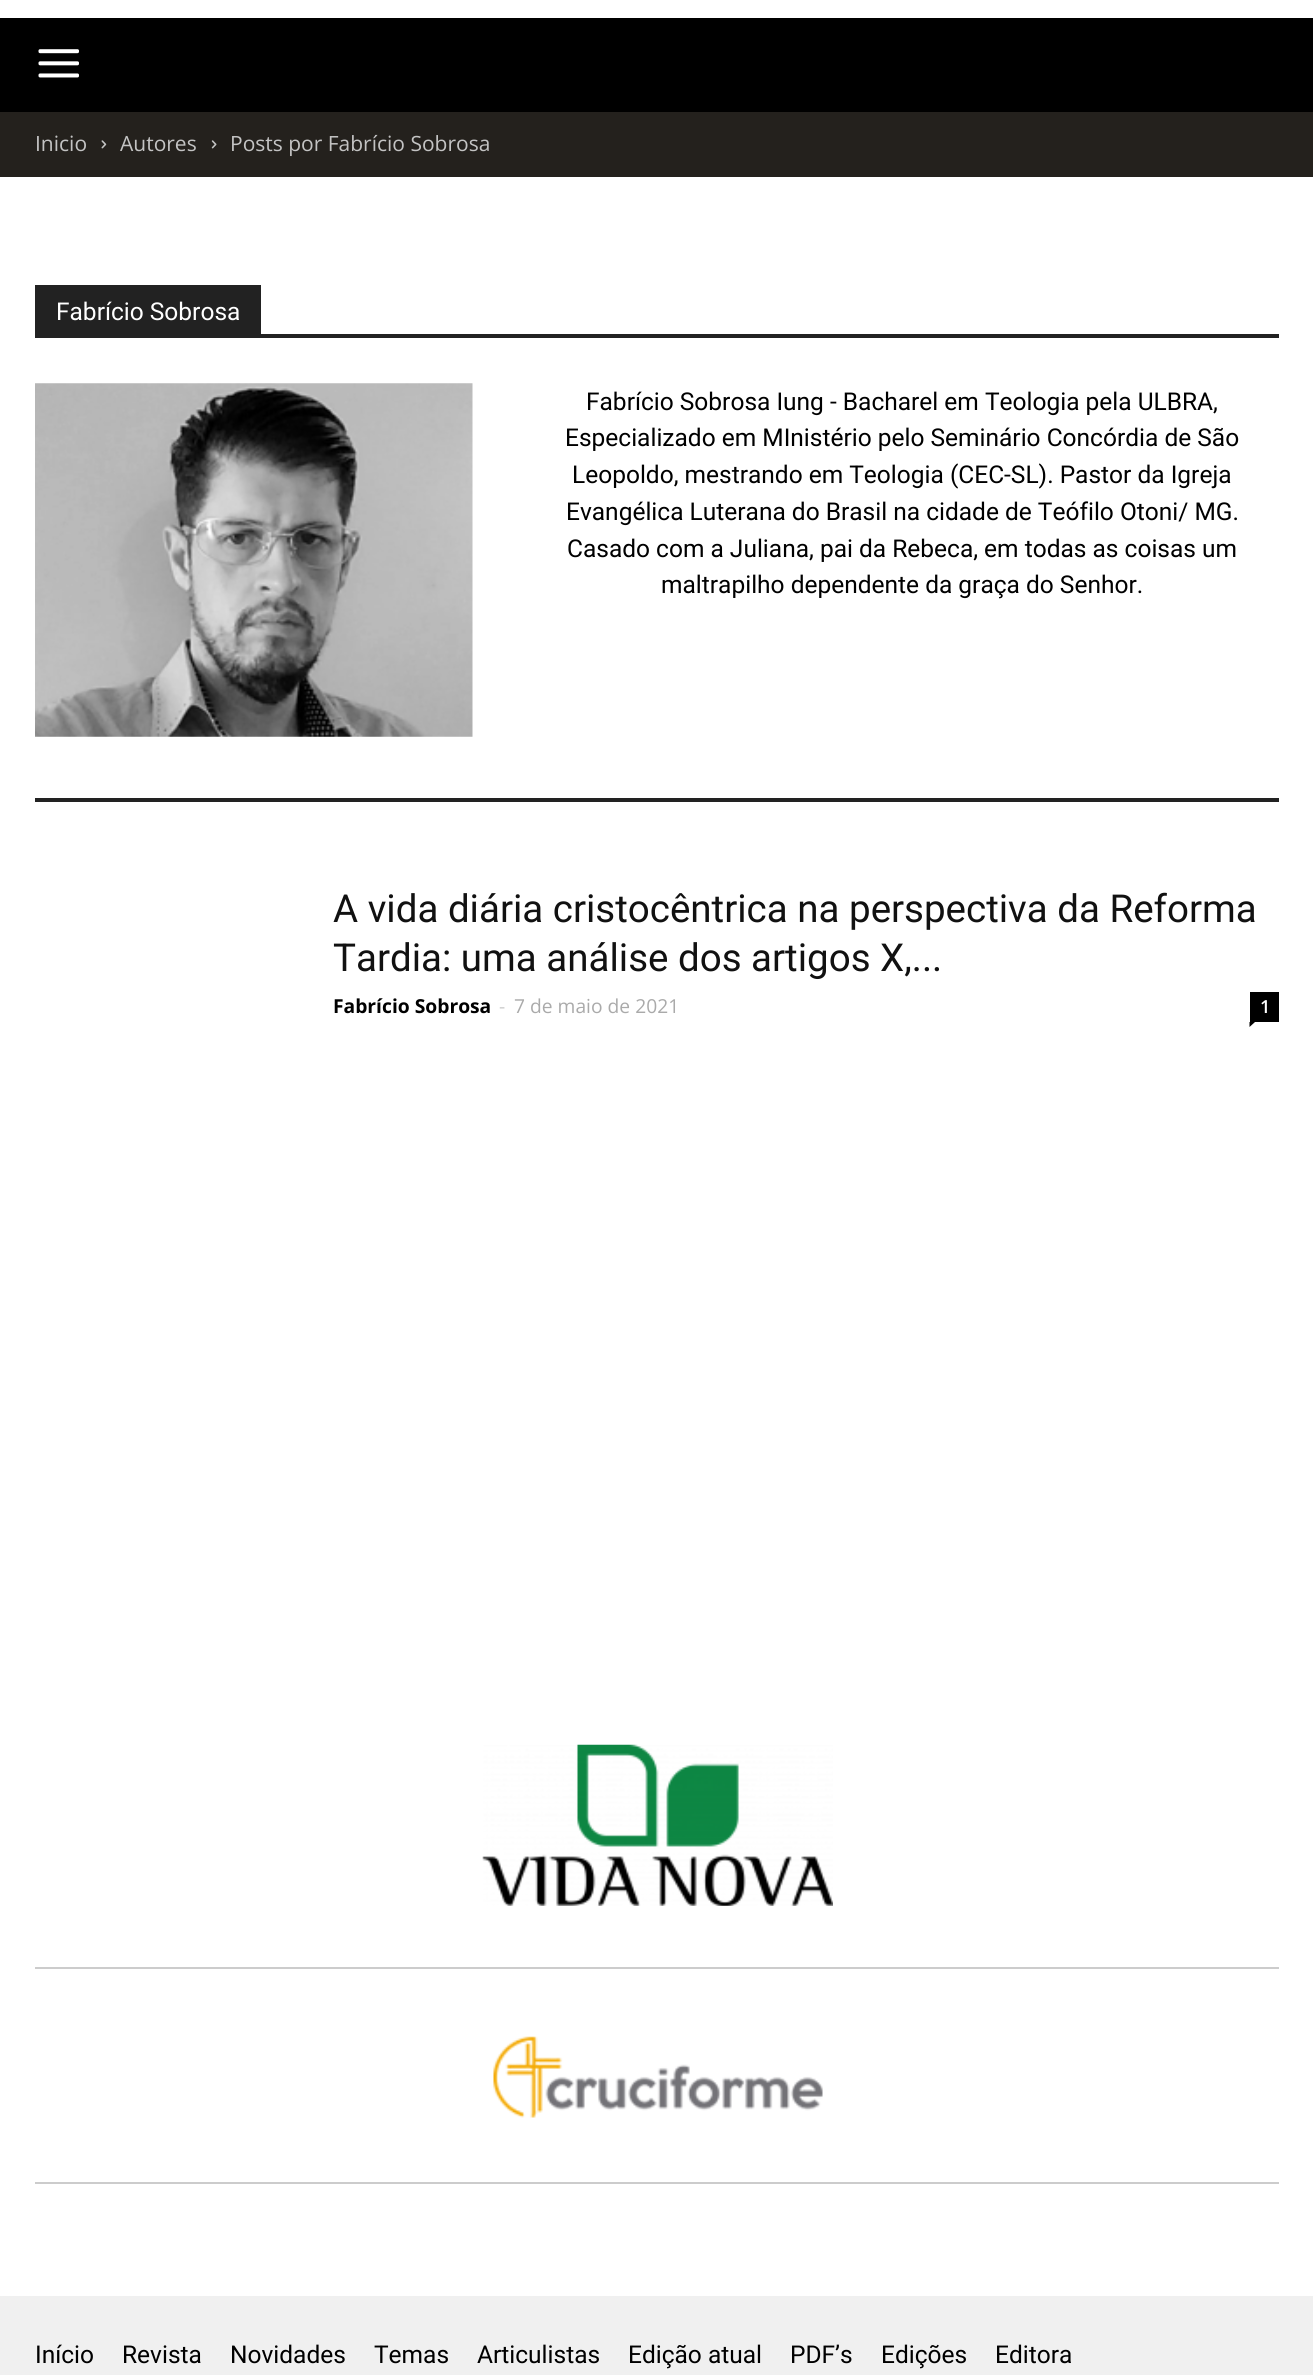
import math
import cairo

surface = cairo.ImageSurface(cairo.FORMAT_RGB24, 1313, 2375)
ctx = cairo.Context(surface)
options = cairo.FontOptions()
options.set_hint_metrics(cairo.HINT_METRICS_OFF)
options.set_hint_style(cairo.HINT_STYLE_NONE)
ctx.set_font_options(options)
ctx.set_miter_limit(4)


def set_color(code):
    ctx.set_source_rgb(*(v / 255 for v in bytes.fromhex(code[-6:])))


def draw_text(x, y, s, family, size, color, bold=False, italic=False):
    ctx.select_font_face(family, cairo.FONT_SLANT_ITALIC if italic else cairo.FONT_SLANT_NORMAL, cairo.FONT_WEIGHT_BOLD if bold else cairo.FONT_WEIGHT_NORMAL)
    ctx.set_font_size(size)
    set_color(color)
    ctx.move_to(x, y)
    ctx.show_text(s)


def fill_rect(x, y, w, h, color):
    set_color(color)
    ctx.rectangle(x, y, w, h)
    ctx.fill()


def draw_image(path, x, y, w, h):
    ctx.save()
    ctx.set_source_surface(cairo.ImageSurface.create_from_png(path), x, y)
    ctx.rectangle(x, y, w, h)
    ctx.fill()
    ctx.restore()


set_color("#ffffff")
ctx.paint()
fill_rect(0, 18, 1313, 94, "#000000")
draw_image("assets/img1.png", 38, 49, 41, 29)
fill_rect(0, 112, 1313, 65, "#24211d")
draw_text(35, 151, "Inicio", "Open Sans", 21, "#c3c3c3")
draw_image("assets/img2.png", 101, 140, 6, 9)
draw_text(120, 151, "Autores", "Open Sans", 21, "#c3c3c3")
draw_image("assets/img3.png", 211, 140, 6, 9)
draw_text(230, 151, "Posts por Fabrício Sobrosa", "Open Sans", 21, "#c3c3c3")
fill_rect(35, 334, 1244, 4, "#222222")
fill_rect(35, 285, 226, 49, "#222222")
draw_text(56, 320, "Fabrício Sobrosa", "Roboto", 24.5, "#ffffff")
fill_rect(35, 798, 1244, 4, "#222222")
draw_image("assets/img4.png", 35, 383, 438, 354)
draw_text(586, 410, "Fabrício Sobrosa Iung - Bacharel em Teologia pela ULBRA,", "Roboto", 24.5, "#000000")
draw_text(565, 446, "Especializado em MInistério pelo Seminário Concórdia de São", "Roboto", 24.5, "#000000")
draw_text(572, 483, "Leopoldo, mestrando em Teologia (CEC-SL). Pastor da Igreja", "Roboto", 24.5, "#000000")
draw_text(566, 520, "Evangélica Luterana do Brasil na cidade de Teófilo Otoni/ MG.", "Roboto", 24.5, "#000000")
draw_text(567, 557, "Casado com a Juliana, pai da Rebeca, em todas as coisas um", "Roboto", 24.5, "#000000")
draw_text(661, 593, "maltrapilho dependente da graça do Senhor.", "Roboto", 24.5, "#000000")
draw_text(333, 922, "A vida diária cristocêntrica na perspectiva da Reforma", "Roboto", 38.5, "#111111")
draw_text(333, 971, "Tardia: uma análise dos artigos X,...", "Roboto", 38.5, "#111111")
draw_text(333, 1013, "Fabrício Sobrosa", "Open Sans", 19.25, "#000000", bold=True)
draw_text(499, 1013, "-", "Open Sans", 19.25, "#cccccc")
draw_text(514, 1013, "7 de maio de 2021", "Open Sans", 19.25, "#aaaaaa")
fill_rect(1250, 992, 29, 30, "#000000")
draw_text(1260, 1013, "1", "Open Sans SemiBold", 18, "#ffffff")
set_color("#000000")
ctx.new_path()
ctx.move_to(1249.5, 1022)
ctx.line_to(1255, 1022)
ctx.line_to(1249.5, 1027)
ctx.close_path()
ctx.fill()
fill_rect(35, 1967, 1244, 2, "#cccccc")
draw_image("assets/img5.png", 482, 1744, 351, 162)
fill_rect(35, 2182, 1244, 2, "#cccccc")
draw_image("assets/img6.png", 493, 2036, 330, 82)
fill_rect(0, 2296, 1313, 79, "#f0f0f0")
draw_text(35, 2363, "Início", "Roboto", 24.5, "#000000")
draw_text(122, 2363, "Revista", "Roboto", 24.5, "#000000")
draw_text(230, 2363, "Novidades", "Roboto", 24.5, "#000000")
draw_text(374, 2363, "Temas", "Roboto", 24.5, "#000000")
draw_text(477, 2363, "Articulistas", "Roboto", 24.5, "#000000")
draw_text(628, 2363, "Edição atual", "Roboto", 24.5, "#000000")
draw_text(790, 2363, "PDF’s", "Roboto", 24.5, "#000000")
draw_text(881, 2363, "Edições", "Roboto", 24.5, "#000000")
draw_text(995, 2363, "Editora", "Roboto", 24.5, "#000000")
surface.write_to_png("output.png")
